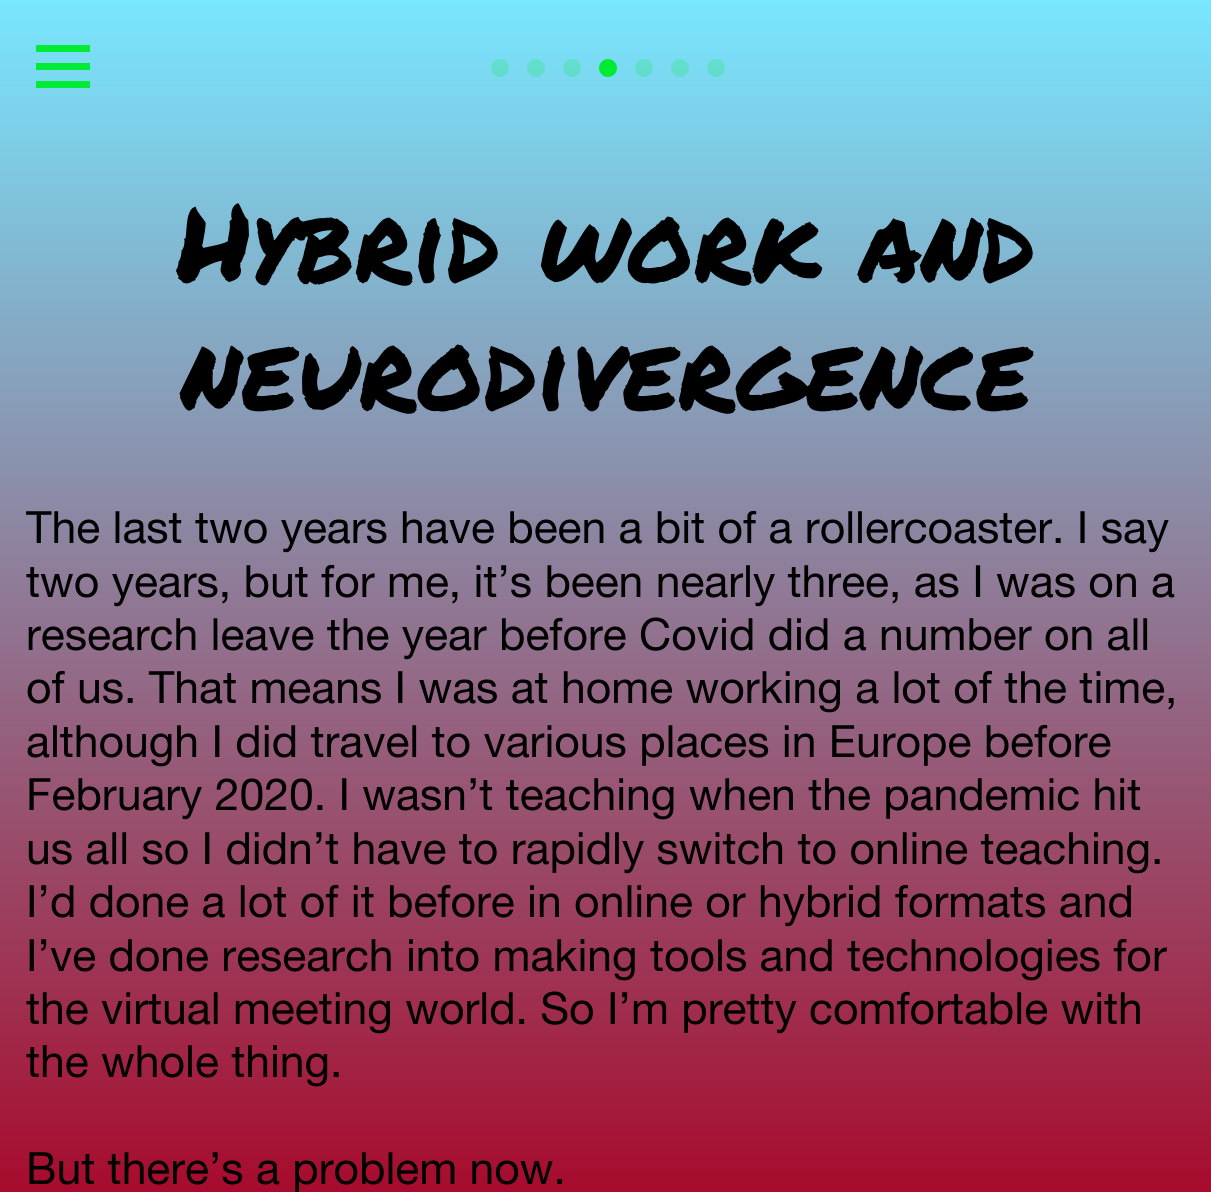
import math
import cairo

surface = cairo.ImageSurface(cairo.FORMAT_RGB24, 1211, 1192)
ctx = cairo.Context(surface)
options = cairo.FontOptions()
options.set_hint_metrics(cairo.HINT_METRICS_OFF)
options.set_hint_style(cairo.HINT_STYLE_NONE)
ctx.set_font_options(options)
ctx.set_miter_limit(4)


def set_color(code):
    ctx.set_source_rgb(*(v / 255 for v in bytes.fromhex(code[-6:])))


def draw_text(x, y, s, family, size, color, bold=False, italic=False):
    ctx.select_font_face(family, cairo.FONT_SLANT_ITALIC if italic else cairo.FONT_SLANT_NORMAL, cairo.FONT_WEIGHT_BOLD if bold else cairo.FONT_WEIGHT_NORMAL)
    ctx.set_font_size(size)
    set_color(color)
    ctx.move_to(x, y)
    ctx.show_text(s)


def fill_rect(x, y, w, h, color):
    set_color(color)
    ctx.rectangle(x, y, w, h)
    ctx.fill()


set_color("#ffffff")
ctx.paint()
gradient = cairo.LinearGradient(606, 0, 606, 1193)
gradient.add_color_stop_rgba(0, 0.471, 0.906, 1, 1)
gradient.add_color_stop_rgba(1, 0.655, 0.043, 0.173, 1)
ctx.set_source(gradient)
ctx.rectangle(0, 0, 1211, 1192)
ctx.fill()
fill_rect(36, 45, 54, 7, "#00ec34")
fill_rect(36, 63, 54, 7, "#00ec34")
fill_rect(36, 81, 54, 7, "#00ec34")
ctx.set_source_rgba(0, 0.925, 0.204, 0.2)
ctx.arc(500, 68, 9, 0, 2 * math.pi)
ctx.fill()
ctx.arc(536, 68, 9, 0, 2 * math.pi)
ctx.fill()
ctx.arc(572, 68, 9, 0, 2 * math.pi)
ctx.fill()
set_color("#00ec34")
ctx.arc(608, 68, 9, 0, 2 * math.pi)
ctx.fill()
ctx.set_source_rgba(0, 0.925, 0.204, 0.2)
ctx.arc(644, 68, 9, 0, 2 * math.pi)
ctx.fill()
ctx.arc(680, 68, 9, 0, 2 * math.pi)
ctx.fill()
ctx.arc(716, 68, 9, 0, 2 * math.pi)
ctx.fill()
draw_text(177, 282, "Hybrid work and", "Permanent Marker", 106.5, "#000000")
draw_text(181, 410, "neurodivergence", "Permanent Marker", 106.5, "#000000")
draw_text(26, 543, "The last two years have been a bit of a rollercoaster. I say", "Helvetica Neue", 44.5, "#000000")
draw_text(26, 597, "two years, but for me, it’s been nearly three, as I was on a", "Helvetica Neue", 44.5, "#000000")
draw_text(26, 650, "research leave the year before Covid did a number on all", "Helvetica Neue", 44.5, "#000000")
draw_text(26, 703, "of us. That means I was at home working a lot of the time,", "Helvetica Neue", 44.5, "#000000")
draw_text(26, 757, "although I did travel to various places in Europe before", "Helvetica Neue", 44.5, "#000000")
draw_text(26, 810, "February 2020. I wasn’t teaching when the pandemic hit", "Helvetica Neue", 44.5, "#000000")
draw_text(26, 864, "us all so I didn’t have to rapidly switch to online teaching.", "Helvetica Neue", 44.5, "#000000")
draw_text(26, 917, "I’d done a lot of it before in online or hybrid formats and", "Helvetica Neue", 44.5, "#000000")
draw_text(26, 971, "I’ve done research into making tools and technologies for", "Helvetica Neue", 44.5, "#000000")
draw_text(26, 1024, "the virtual meeting world. So I’m pretty comfortable with", "Helvetica Neue", 44.5, "#000000")
draw_text(26, 1077, "the whole thing.", "Helvetica Neue", 44.5, "#000000")
draw_text(26, 1184, "But there’s a problem now.", "Helvetica Neue", 44.5, "#000000")
surface.write_to_png("output.png")
